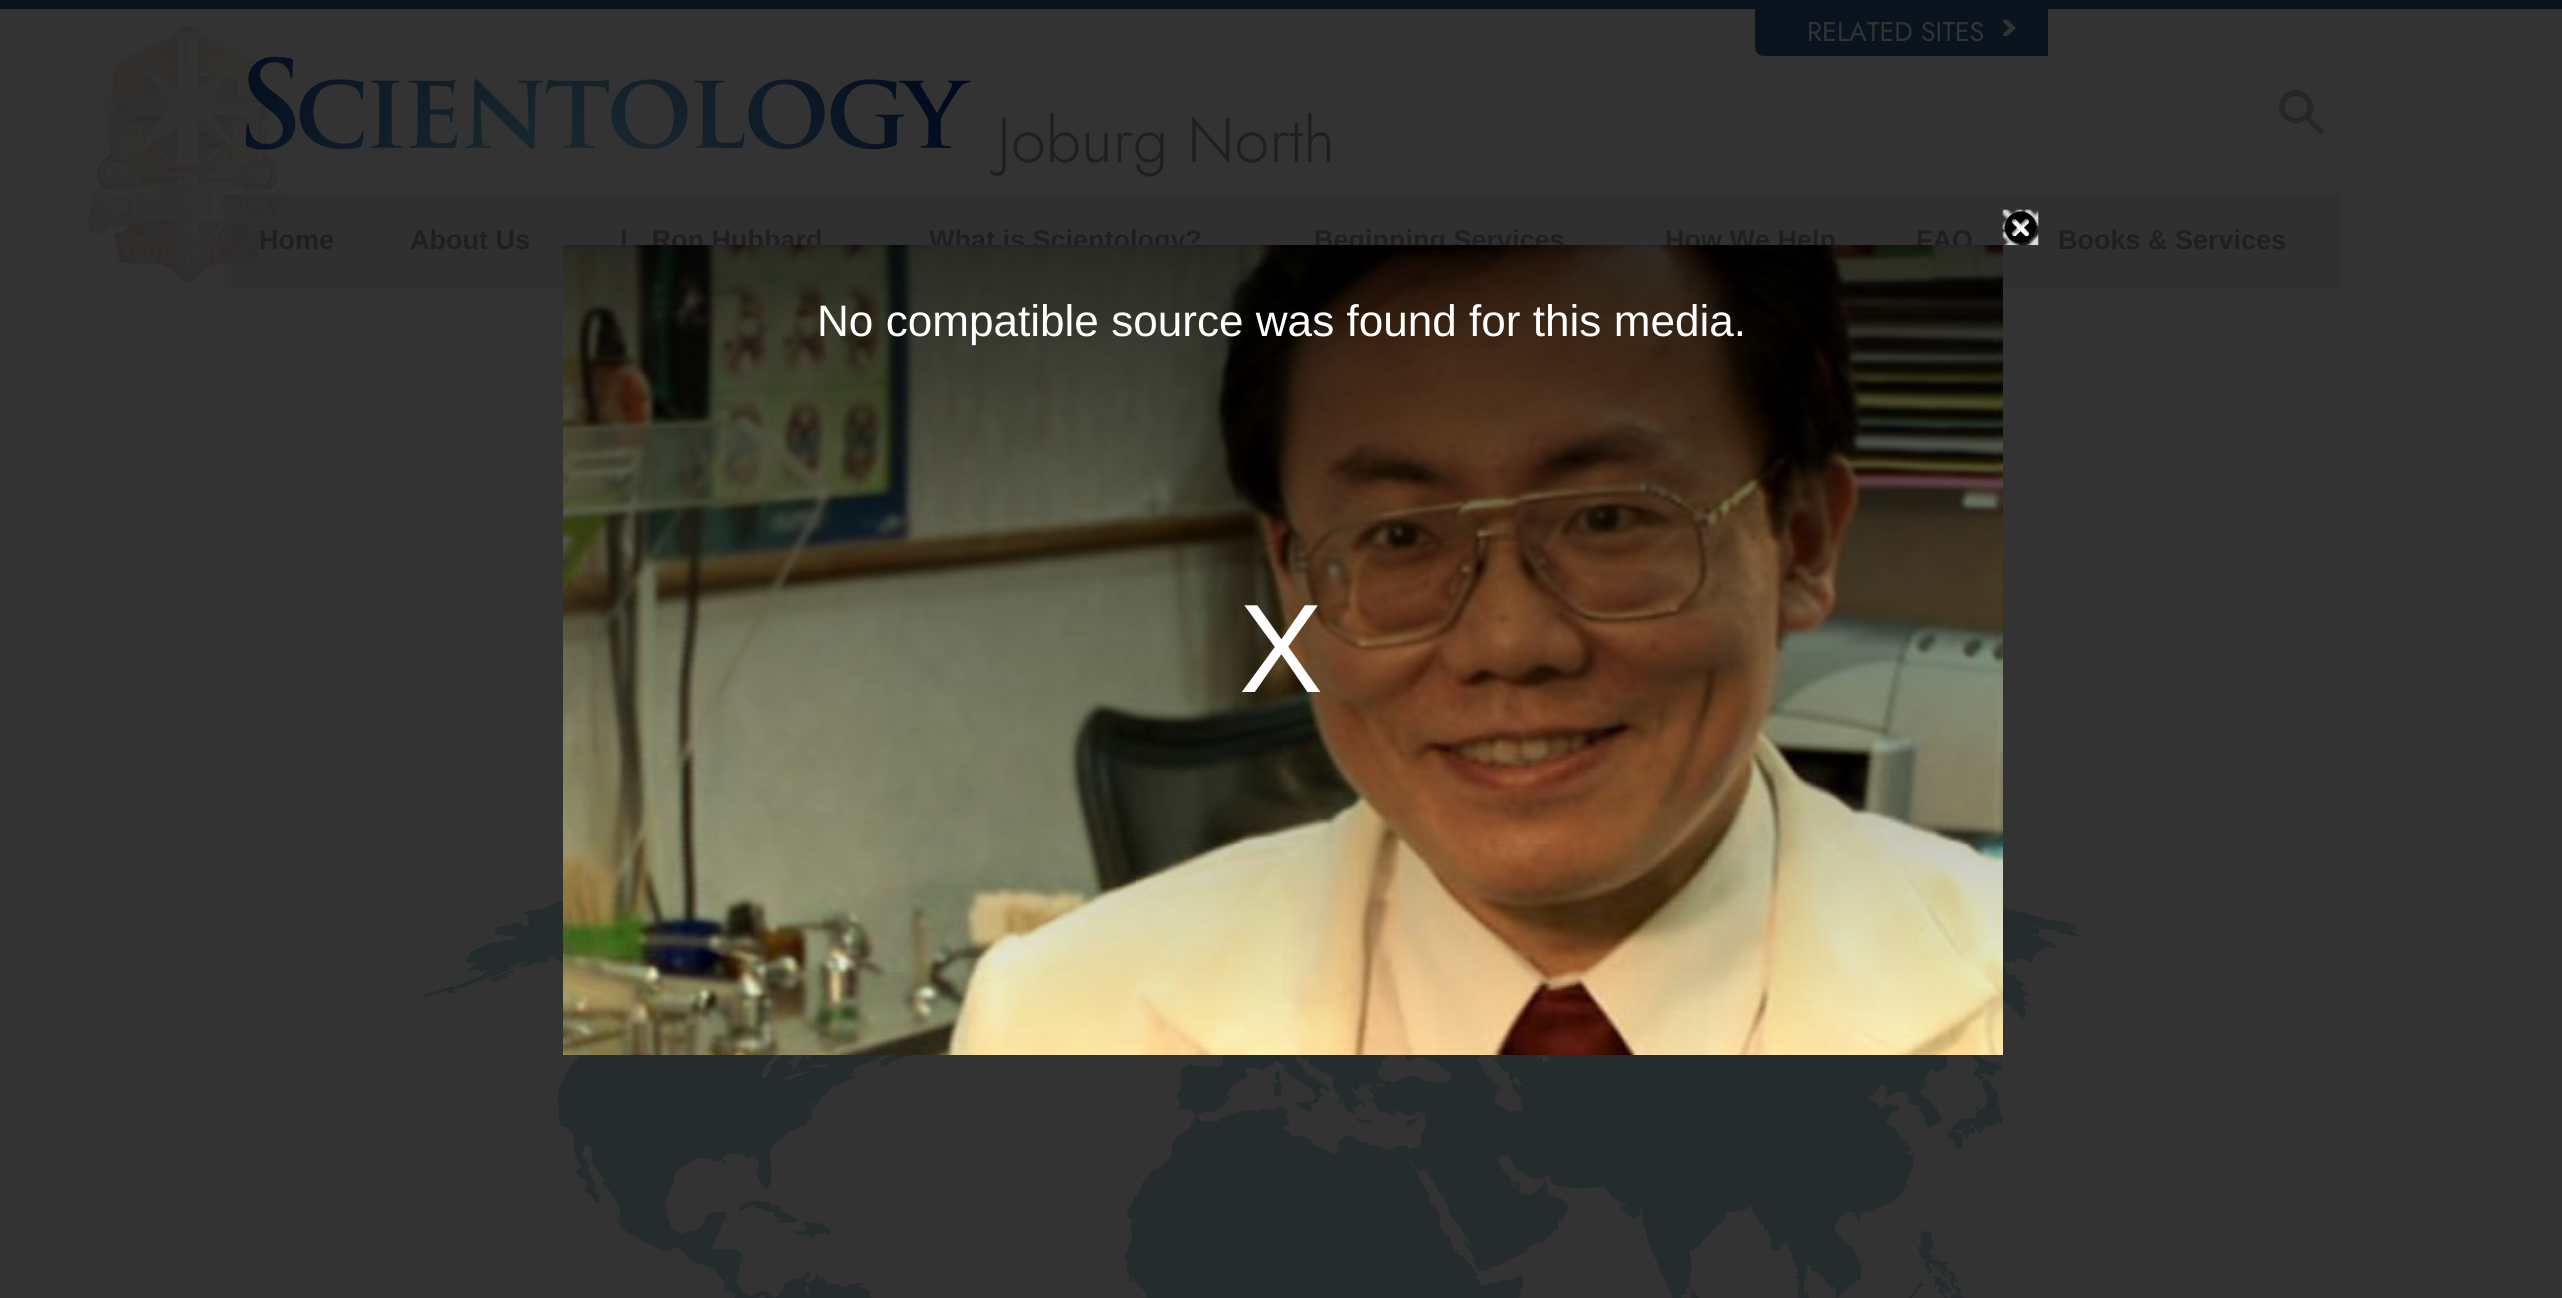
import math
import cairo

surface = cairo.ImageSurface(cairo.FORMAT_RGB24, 2562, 1298)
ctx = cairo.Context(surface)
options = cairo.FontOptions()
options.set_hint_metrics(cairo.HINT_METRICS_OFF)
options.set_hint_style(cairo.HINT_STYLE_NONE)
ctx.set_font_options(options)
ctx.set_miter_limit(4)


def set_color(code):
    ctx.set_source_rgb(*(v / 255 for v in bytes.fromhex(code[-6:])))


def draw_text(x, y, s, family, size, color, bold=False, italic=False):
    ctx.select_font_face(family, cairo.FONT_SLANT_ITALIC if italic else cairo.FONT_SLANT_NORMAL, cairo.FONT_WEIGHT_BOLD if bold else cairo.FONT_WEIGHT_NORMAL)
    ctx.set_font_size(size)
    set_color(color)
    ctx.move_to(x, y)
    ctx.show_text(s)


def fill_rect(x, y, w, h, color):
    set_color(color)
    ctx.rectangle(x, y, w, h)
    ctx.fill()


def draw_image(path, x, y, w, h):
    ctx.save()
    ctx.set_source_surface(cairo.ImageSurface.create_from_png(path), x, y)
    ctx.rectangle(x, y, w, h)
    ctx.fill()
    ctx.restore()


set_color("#333333")
ctx.paint()
fill_rect(0, 0, 2562, 9, "#0a141f")
ctx.new_path()
ctx.move_to(1755, 9)
ctx.line_to(2048, 9)
ctx.line_to(2048, 56)
ctx.line_to(1764, 56)
ctx.curve_to(1759, 56, 1755, 52, 1755, 47)
ctx.close_path()
ctx.fill()
draw_text(1807, 41, "RELATED SITES", "Jost", 27, "#333333")
draw_image("assets/img1.png", 2003, 19, 13, 17)
draw_image("assets/img2.png", 88, 25, 199, 258)
draw_image("assets/img3.png", 245, 56, 726, 94)
draw_text(997, 162, "Joburg North", "Jost Light", 63, "#1f1f1f")
ctx.save()
ctx.rectangle(2279, 90, 45, 45)
ctx.clip()
set_color("#262626")
ctx.new_path()
ctx.move_to(2324, 131)
ctx.line_to(2324, 132)
ctx.curve_to(2321, 136, 2320, 135, 2318, 132)
ctx.line_to(2306, 120)
ctx.curve_to(2290, 132, 2269, 110, 2284, 95)
ctx.curve_to(2299, 80, 2322, 101, 2310, 117)
ctx.close_path()
ctx.move_to(2296, 96)
ctx.curve_to(2281, 96, 2281, 118, 2296, 118)
ctx.curve_to(2311, 118, 2311, 96, 2296, 96)
ctx.close_path()
ctx.fill()
ctx.restore()
ctx.set_source_rgba(0.169, 0.169, 0.169, 0.4)
ctx.rectangle(225, 194, 144, 94)
ctx.fill()
draw_text(259, 249, "Home", "Liberation Sans", 27, "#1f1f1f", bold=True)
fill_rect(369, 194, 203, 94, "#303030")
draw_text(410, 249, "About Us", "Liberation Sans", 27, "#1f1f1f", bold=True)
fill_rect(572, 194, 1309, 51, "#303030")
draw_text(620, 249, "L. Ron Hubbard", "Liberation Sans", 27, "#1f1f1f", bold=True)
draw_text(929, 249, "What is Scientology?", "Liberation Sans", 27, "#1f1f1f", bold=True)
draw_text(1314, 249, "Beginning Services", "Liberation Sans", 27, "#1f1f1f", bold=True)
draw_text(1665, 249, "How We Help", "Liberation Sans", 27, "#1f1f1f", bold=True)
fill_rect(1881, 194, 459, 94, "#303030")
draw_text(1916, 249, "FAQ", "Liberation Sans", 27, "#1f1f1f", bold=True)
draw_text(2058, 249, "Books & Services", "Liberation Sans", 27, "#1f1f1f", bold=True)
draw_image("assets/img7.png", 423, 901, 1656, 397)
draw_image("assets/img6.png", 563, 245, 1440, 810)
draw_image("assets/img4.png", 2002, 209, 37, 37)
draw_image("assets/img5.png", 2004, 211, 34, 34)
draw_text(817, 336, "No compatible source was found for this media.", "Liberation Sans", 44.1, "#ffffff")
draw_text(1239, 692, "X", "Liberation Sans", 126, "#ffffff")
surface.write_to_png("output.png")
